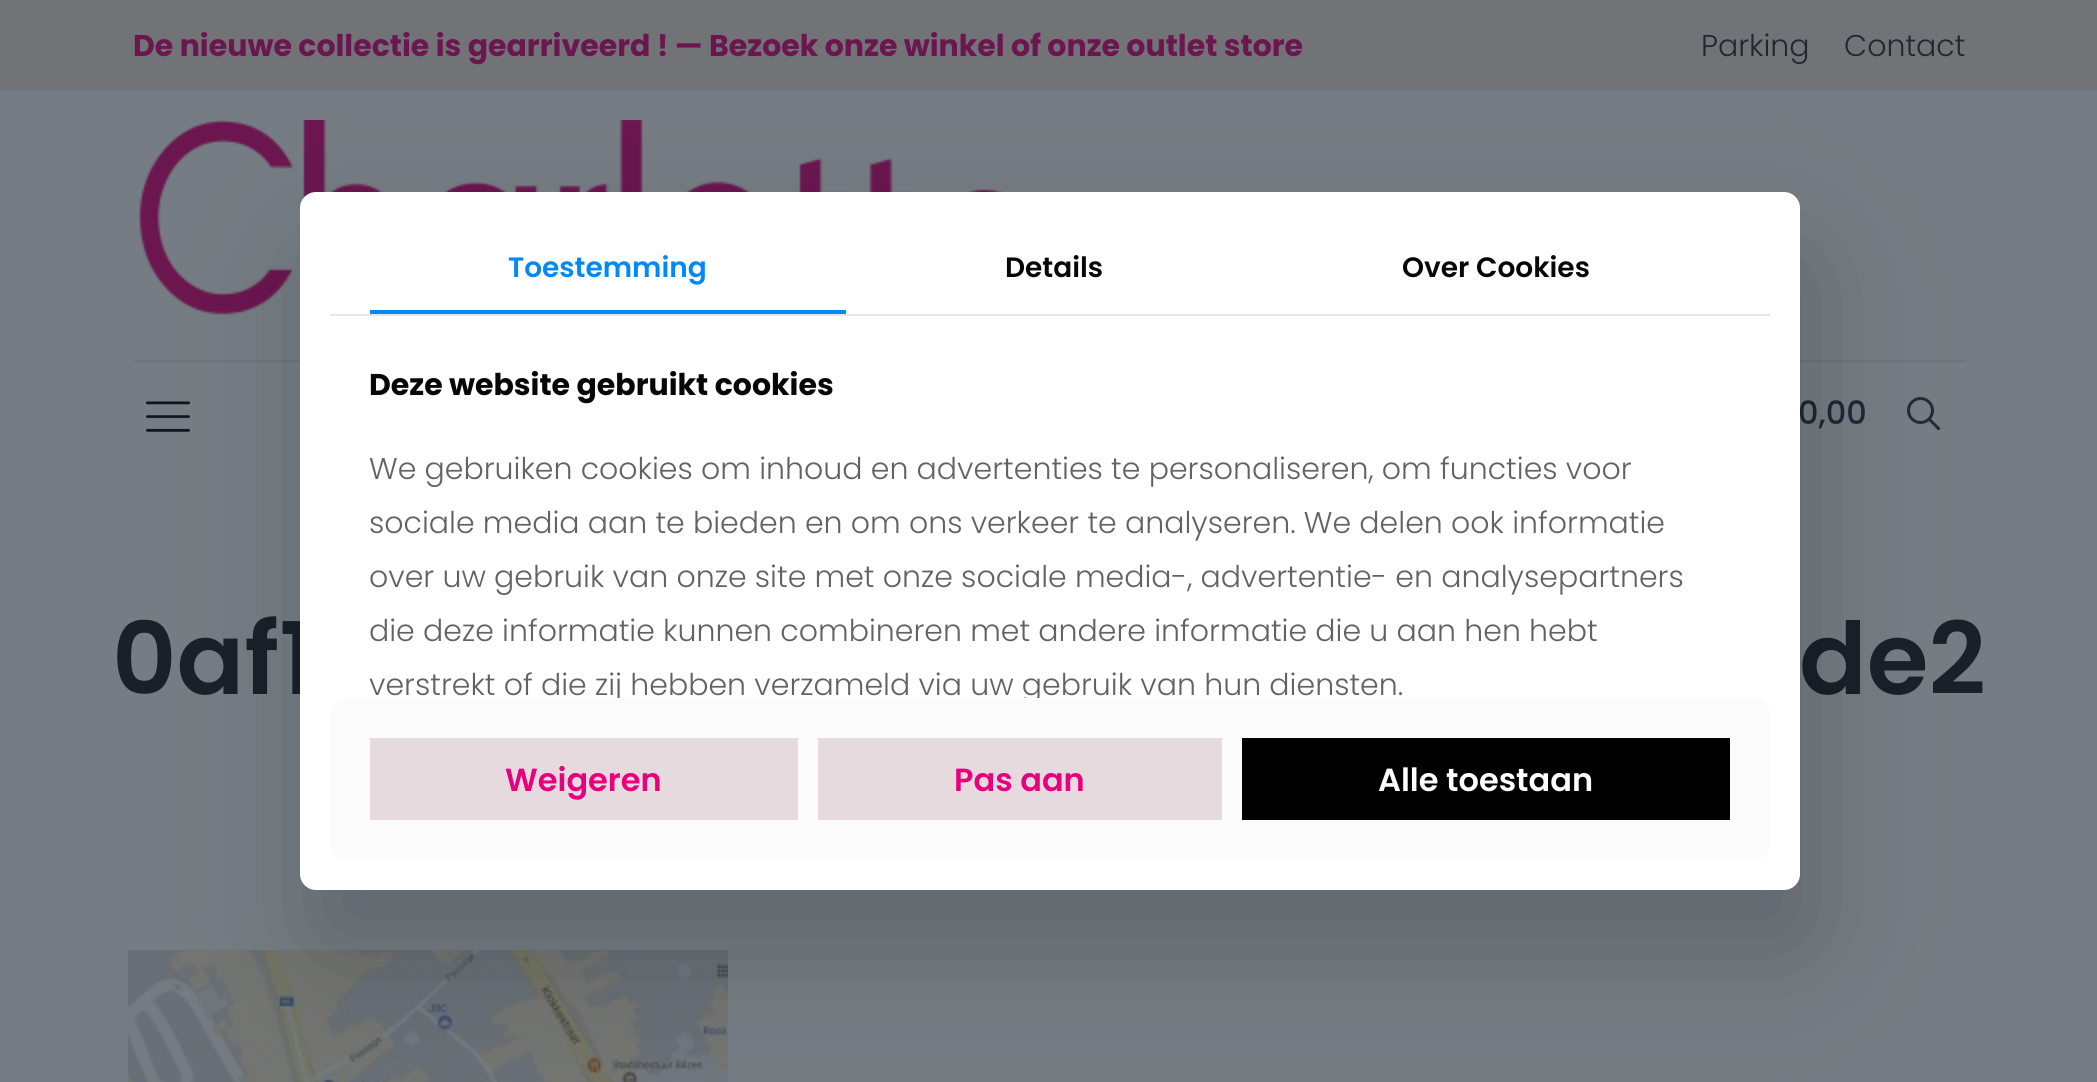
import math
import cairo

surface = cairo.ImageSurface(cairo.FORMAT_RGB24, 2097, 1082)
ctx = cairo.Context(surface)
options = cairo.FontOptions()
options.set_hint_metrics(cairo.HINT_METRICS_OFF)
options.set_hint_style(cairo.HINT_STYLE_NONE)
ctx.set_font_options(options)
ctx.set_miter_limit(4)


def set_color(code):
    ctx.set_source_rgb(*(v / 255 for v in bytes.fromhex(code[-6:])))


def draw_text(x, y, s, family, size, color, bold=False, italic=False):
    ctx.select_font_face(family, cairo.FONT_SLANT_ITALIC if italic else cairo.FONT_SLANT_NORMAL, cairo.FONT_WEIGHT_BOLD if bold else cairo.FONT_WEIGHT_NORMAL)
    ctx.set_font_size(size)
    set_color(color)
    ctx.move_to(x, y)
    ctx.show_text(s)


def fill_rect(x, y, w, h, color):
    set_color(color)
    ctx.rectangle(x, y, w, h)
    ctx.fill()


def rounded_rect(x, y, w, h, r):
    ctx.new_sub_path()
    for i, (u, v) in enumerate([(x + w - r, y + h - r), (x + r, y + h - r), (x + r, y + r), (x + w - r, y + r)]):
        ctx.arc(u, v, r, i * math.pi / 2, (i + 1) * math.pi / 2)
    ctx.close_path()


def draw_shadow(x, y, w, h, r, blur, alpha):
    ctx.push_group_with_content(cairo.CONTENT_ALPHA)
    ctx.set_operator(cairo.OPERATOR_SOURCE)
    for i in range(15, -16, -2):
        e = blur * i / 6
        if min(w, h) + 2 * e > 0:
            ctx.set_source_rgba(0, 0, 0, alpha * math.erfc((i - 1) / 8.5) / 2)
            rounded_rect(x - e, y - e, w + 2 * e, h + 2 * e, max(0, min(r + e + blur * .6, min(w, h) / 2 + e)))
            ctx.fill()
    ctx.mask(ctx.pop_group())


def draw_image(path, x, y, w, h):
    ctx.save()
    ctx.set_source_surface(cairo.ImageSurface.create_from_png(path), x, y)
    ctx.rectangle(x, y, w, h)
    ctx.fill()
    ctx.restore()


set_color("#757c83")
ctx.paint()
fill_rect(0, 0, 2097, 90, "#727377")
draw_text(133, 56, "De nieuwe collectie is gearriveerd ! — Bezoek onze winkel of onze outlet store", "Poppins", 30, "#6b164f", bold=True)
draw_text(1701, 56, "Parking", "Poppins Light", 30, "#202734")
draw_text(1844, 56, "Contact", "Poppins Light", 30, "#202734")
fill_rect(134, 360, 1832, 2, "#6d747b")
draw_image("assets/img1.png", 139, 120, 865, 195)
draw_image("assets/img2.png", 146, 401, 44, 31)
draw_text(1798, 424, "0,00", "Poppins Medium", 32, "#202734")
ctx.new_path()
ctx.arc(1920.5, 410.5, 12, 0, 2 * math.pi)
set_color("#232b31")
ctx.set_line_width(3)
ctx.stroke()
ctx.new_path()
ctx.move_to(1929, 419)
ctx.line_to(1939.5, 429.5)
ctx.stroke()
draw_text(112, 694, "0af1", "Poppins SemiBold", 100, "#18202a")
draw_text(1799, 694, "de2", "Poppins SemiBold", 100, "#18202a")
draw_image("assets/img3.png", 128, 950, 600, 132)
set_color("#000000")
draw_shadow(312, 252, 1500, 698, 16, 60, 0.18)
set_color("#ffffff")
rounded_rect(300, 192, 1500, 698, 16)
ctx.fill()
fill_rect(330, 314, 1440, 2, "#e6e6e7")
draw_text(508, 277, "Toestemming", "Poppins SemiBold", 28, "#0089f7")
fill_rect(370, 310, 476, 4, "#0089f7")
draw_text(1005, 277, "Details", "Poppins SemiBold", 28, "#07070a")
draw_text(1402, 277, "Over Cookies", "Poppins SemiBold", 28, "#07070a")
draw_text(369, 395, "Deze website gebruikt cookies", "Poppins", 30, "#07070a", bold=True)
draw_text(369, 479, "We gebruiken cookies om inhoud en advertenties te personaliseren, om functies voor", "Poppins Light", 30, "#626262")
draw_text(369, 533, "sociale media aan te bieden en om ons verkeer te analyseren. We delen ook informatie", "Poppins Light", 30, "#626262")
draw_text(369, 587, "over uw gebruik van onze site met onze sociale media-, advertentie- en analysepartners", "Poppins Light", 30, "#626262")
draw_text(369, 641, "die deze informatie kunnen combineren met andere informatie die u aan hen hebt", "Poppins Light", 30, "#626262")
ctx.save()
ctx.rectangle(330, 316, 1440, 382)
ctx.clip()
draw_text(369, 695, "verstrekt of die zij hebben verzameld via uw gebruik van hun diensten.", "Poppins Light", 30, "#626262")
ctx.restore()
set_color("#fbfbfb")
rounded_rect(330, 698, 1440, 162, 16)
ctx.fill()
fill_rect(370, 738, 428, 82, "#e6dadf")
draw_text(505, 791, "Weigeren", "Poppins SemiBold", 32, "#e6007e")
fill_rect(818, 738, 404, 82, "#e6dadf")
draw_text(954, 791, "Pas aan", "Poppins SemiBold", 32, "#e6007e")
fill_rect(1242, 738, 488, 82, "#000000")
draw_text(1378, 791, "Alle toestaan", "Poppins SemiBold", 32, "#ffffff")
surface.write_to_png("output.png")
